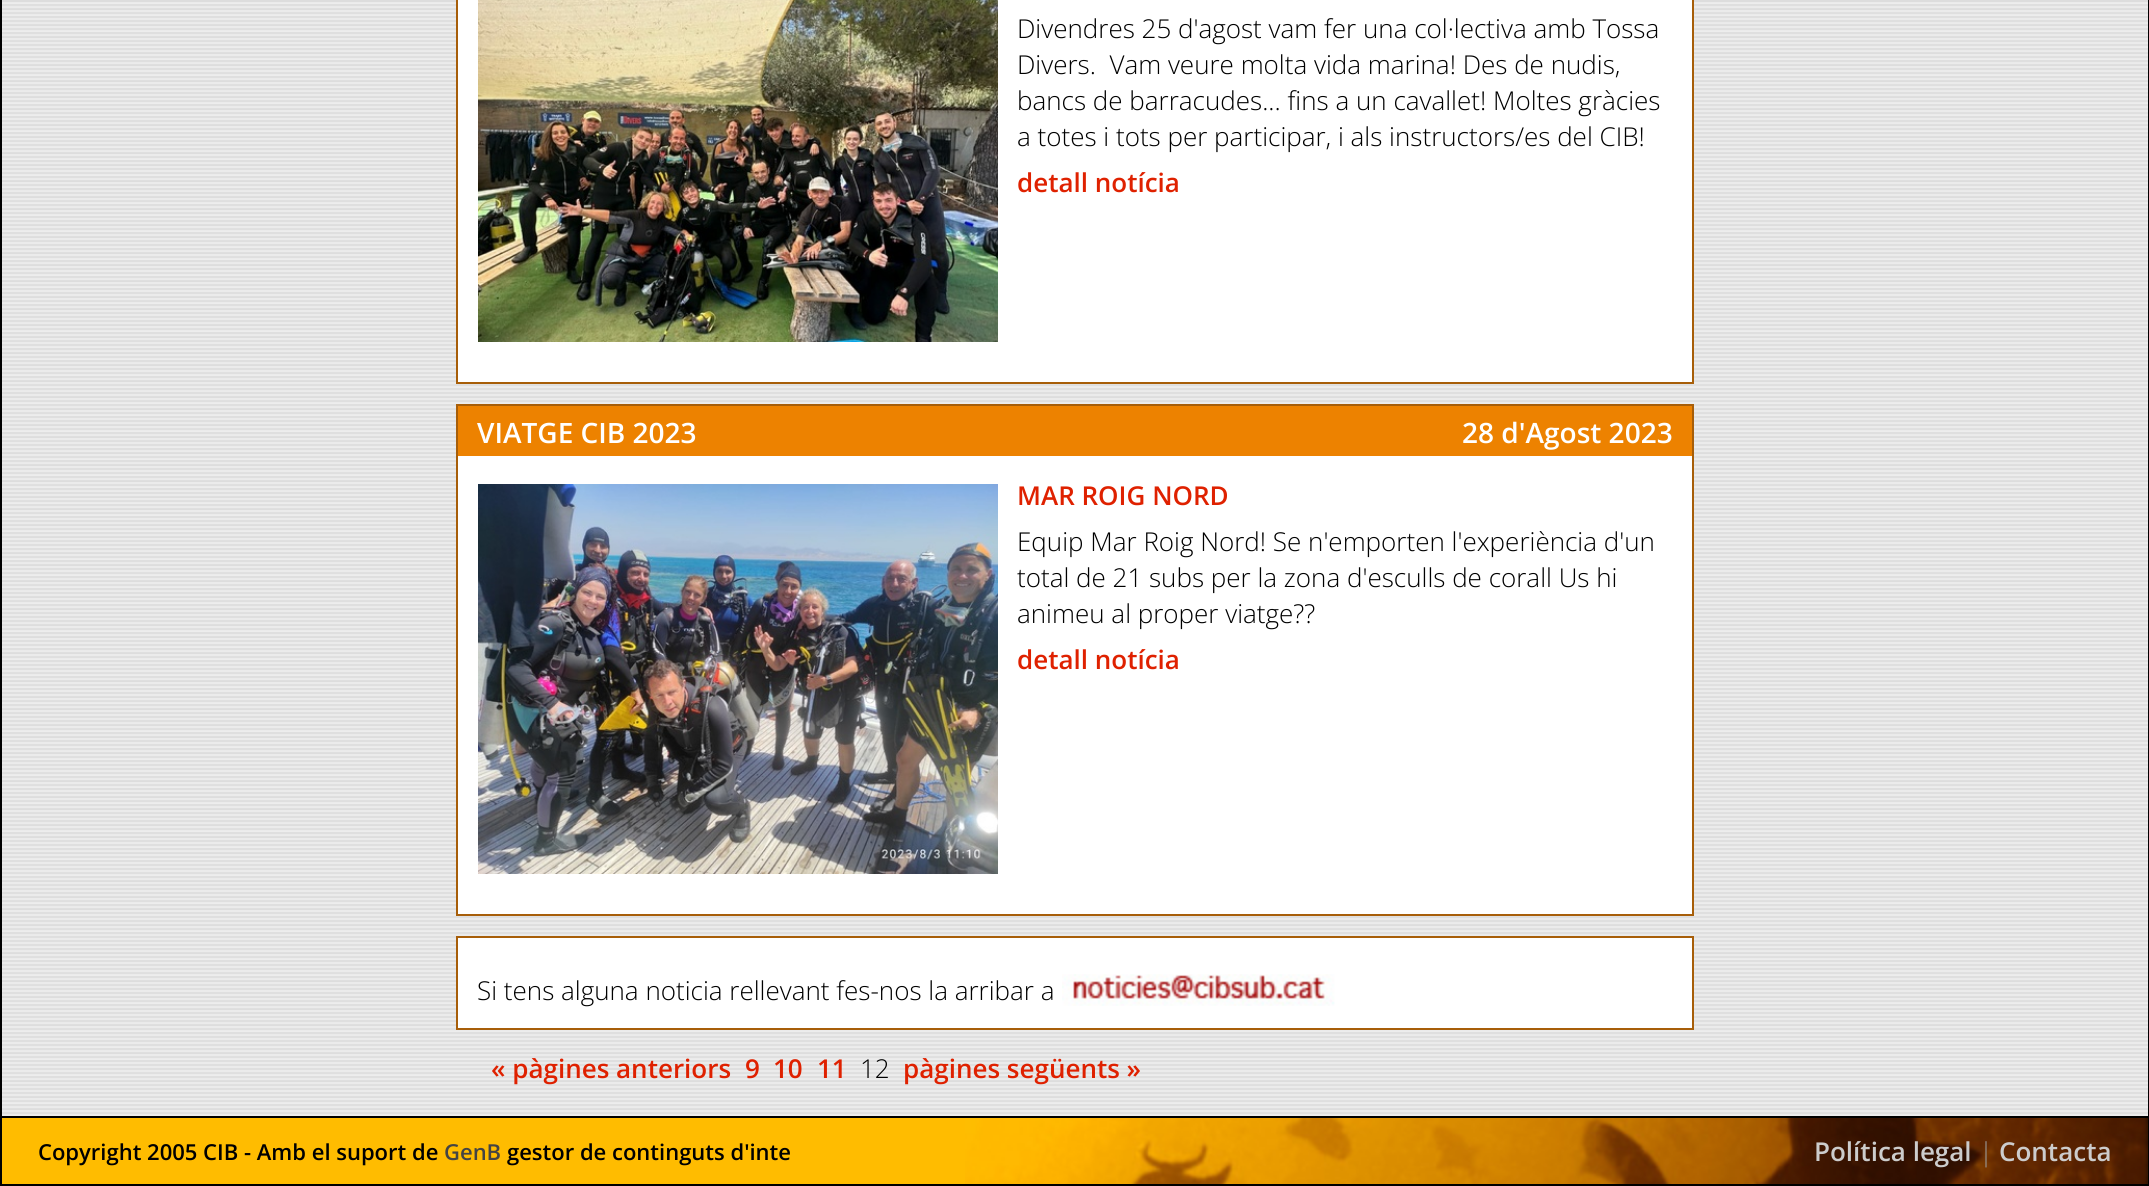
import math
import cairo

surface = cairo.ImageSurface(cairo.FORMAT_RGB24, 2149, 1186)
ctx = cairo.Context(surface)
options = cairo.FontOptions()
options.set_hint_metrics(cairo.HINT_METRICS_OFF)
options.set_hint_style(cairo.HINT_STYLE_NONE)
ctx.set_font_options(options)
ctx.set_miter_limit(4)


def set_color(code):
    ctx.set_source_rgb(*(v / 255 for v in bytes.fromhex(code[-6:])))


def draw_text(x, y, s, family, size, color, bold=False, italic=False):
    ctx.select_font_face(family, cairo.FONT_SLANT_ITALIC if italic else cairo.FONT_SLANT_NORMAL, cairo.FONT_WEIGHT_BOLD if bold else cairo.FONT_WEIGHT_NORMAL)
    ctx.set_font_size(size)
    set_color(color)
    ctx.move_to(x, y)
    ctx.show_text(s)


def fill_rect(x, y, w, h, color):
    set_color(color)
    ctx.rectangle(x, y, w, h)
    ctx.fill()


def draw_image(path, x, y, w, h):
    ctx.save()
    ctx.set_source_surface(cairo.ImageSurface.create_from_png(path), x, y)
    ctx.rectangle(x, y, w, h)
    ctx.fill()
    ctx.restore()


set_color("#dddddd")
ctx.paint()
draw_image("assets/img1.png", 2, 2, 2146, 1114)
fill_rect(2148, 0, 1, 1116, "#000000")
fill_rect(0, 0, 2, 1116, "#000000")
set_color("#ffffff")
ctx.rectangle(457, -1, 1236, 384)
ctx.fill_preserve()
set_color("#a75e09")
ctx.stroke()
draw_image("assets/img2.png", 478, 0, 520, 342)
draw_text(1017, 38, "Divendres 25 d'agost vam fer una col·lectiva amb Tossa", "Open Sans Light", 26, "#000000")
draw_text(1017, 74, "Divers.  Vam veure molta vida marina! Des de nudis,", "Open Sans Light", 26, "#000000")
draw_text(1017, 110, "bancs de barracudes... fins a un cavallet! Moltes gràcies", "Open Sans Light", 26, "#000000")
draw_text(1017, 146, "a totes i tots per participar, i als instructors/es del CIB!", "Open Sans Light", 26, "#000000")
draw_text(1017, 192, "detall notícia", "Open Sans SemiBold", 26, "#df2100")
fill_rect(458, 456, 1234, 458, "#ffffff")
ctx.rectangle(457, 405, 1236, 510)
set_color("#a75e09")
ctx.stroke()
fill_rect(458, 406, 1234, 50, "#ed8200")
draw_text(477, 443, "VIATGE CIB 2023", "Open Sans SemiBold", 28, "#ffffff")
draw_text(1462, 443, "28 d'Agost 2023", "Open Sans SemiBold", 28, "#ffffff")
draw_image("assets/img3.png", 478, 484, 520, 390)
draw_text(1017, 505, "MAR ROIG NORD", "Open Sans SemiBold", 26, "#df2100")
draw_text(1017, 551, "Equip Mar Roig Nord! Se n'emporten l'experiència d'un", "Open Sans Light", 26, "#000000")
draw_text(1017, 587, "total de 21 subs per la zona d'esculls de corall Us hi", "Open Sans Light", 26, "#000000")
draw_text(1017, 623, "animeu al proper viatge??", "Open Sans Light", 26, "#000000")
draw_text(1017, 669, "detall notícia", "Open Sans SemiBold", 26, "#df2100")
set_color("#ffffff")
ctx.rectangle(457, 937, 1236, 92)
ctx.fill_preserve()
set_color("#a75e09")
ctx.stroke()
draw_text(477, 1000, "Si tens alguna noticia rellevant fes-nos la arribar a", "Open Sans Light", 26, "#000000")
draw_image("assets/img4.png", 1062, 974, 273, 32)
draw_text(491, 1078, "« pàgines anteriors", "Open Sans SemiBold", 26, "#df2100")
draw_text(745, 1078, "9", "Open Sans SemiBold", 26, "#df2100")
draw_text(773, 1078, "10", "Open Sans SemiBold", 26, "#df2100")
draw_text(817, 1078, "11", "Open Sans SemiBold", 26, "#df2100")
draw_text(860, 1078, "12", "Open Sans Light", 26, "#000000")
draw_text(903, 1078, "pàgines següents »", "Open Sans SemiBold", 26, "#df2100")
fill_rect(2, 1118, 963, 66, "#ffbc00")
draw_image("assets/img5.png", 965, 1118, 1183, 66)
ctx.rectangle(1, 1117, 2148, 68)
set_color("#000000")
ctx.stroke()
draw_text(38, 1160, "Copyright 2005 CIB - Amb el suport de", "Open Sans SemiBold", 22, "#000000")
draw_text(444, 1160, "GenB", "Open Sans SemiBold", 22, "#444444")
draw_text(507, 1160, "gestor de continguts d'inte", "Open Sans SemiBold", 22, "#000000")
draw_text(1814, 1161, "Política legal", "Open Sans SemiBold", 26, "#cccccc")
draw_text(1979, 1161, "|", "Open Sans Light", 26, "#999999")
draw_text(1999, 1161, "Contacta", "Open Sans SemiBold", 26, "#cccccc")
surface.write_to_png("output.png")
